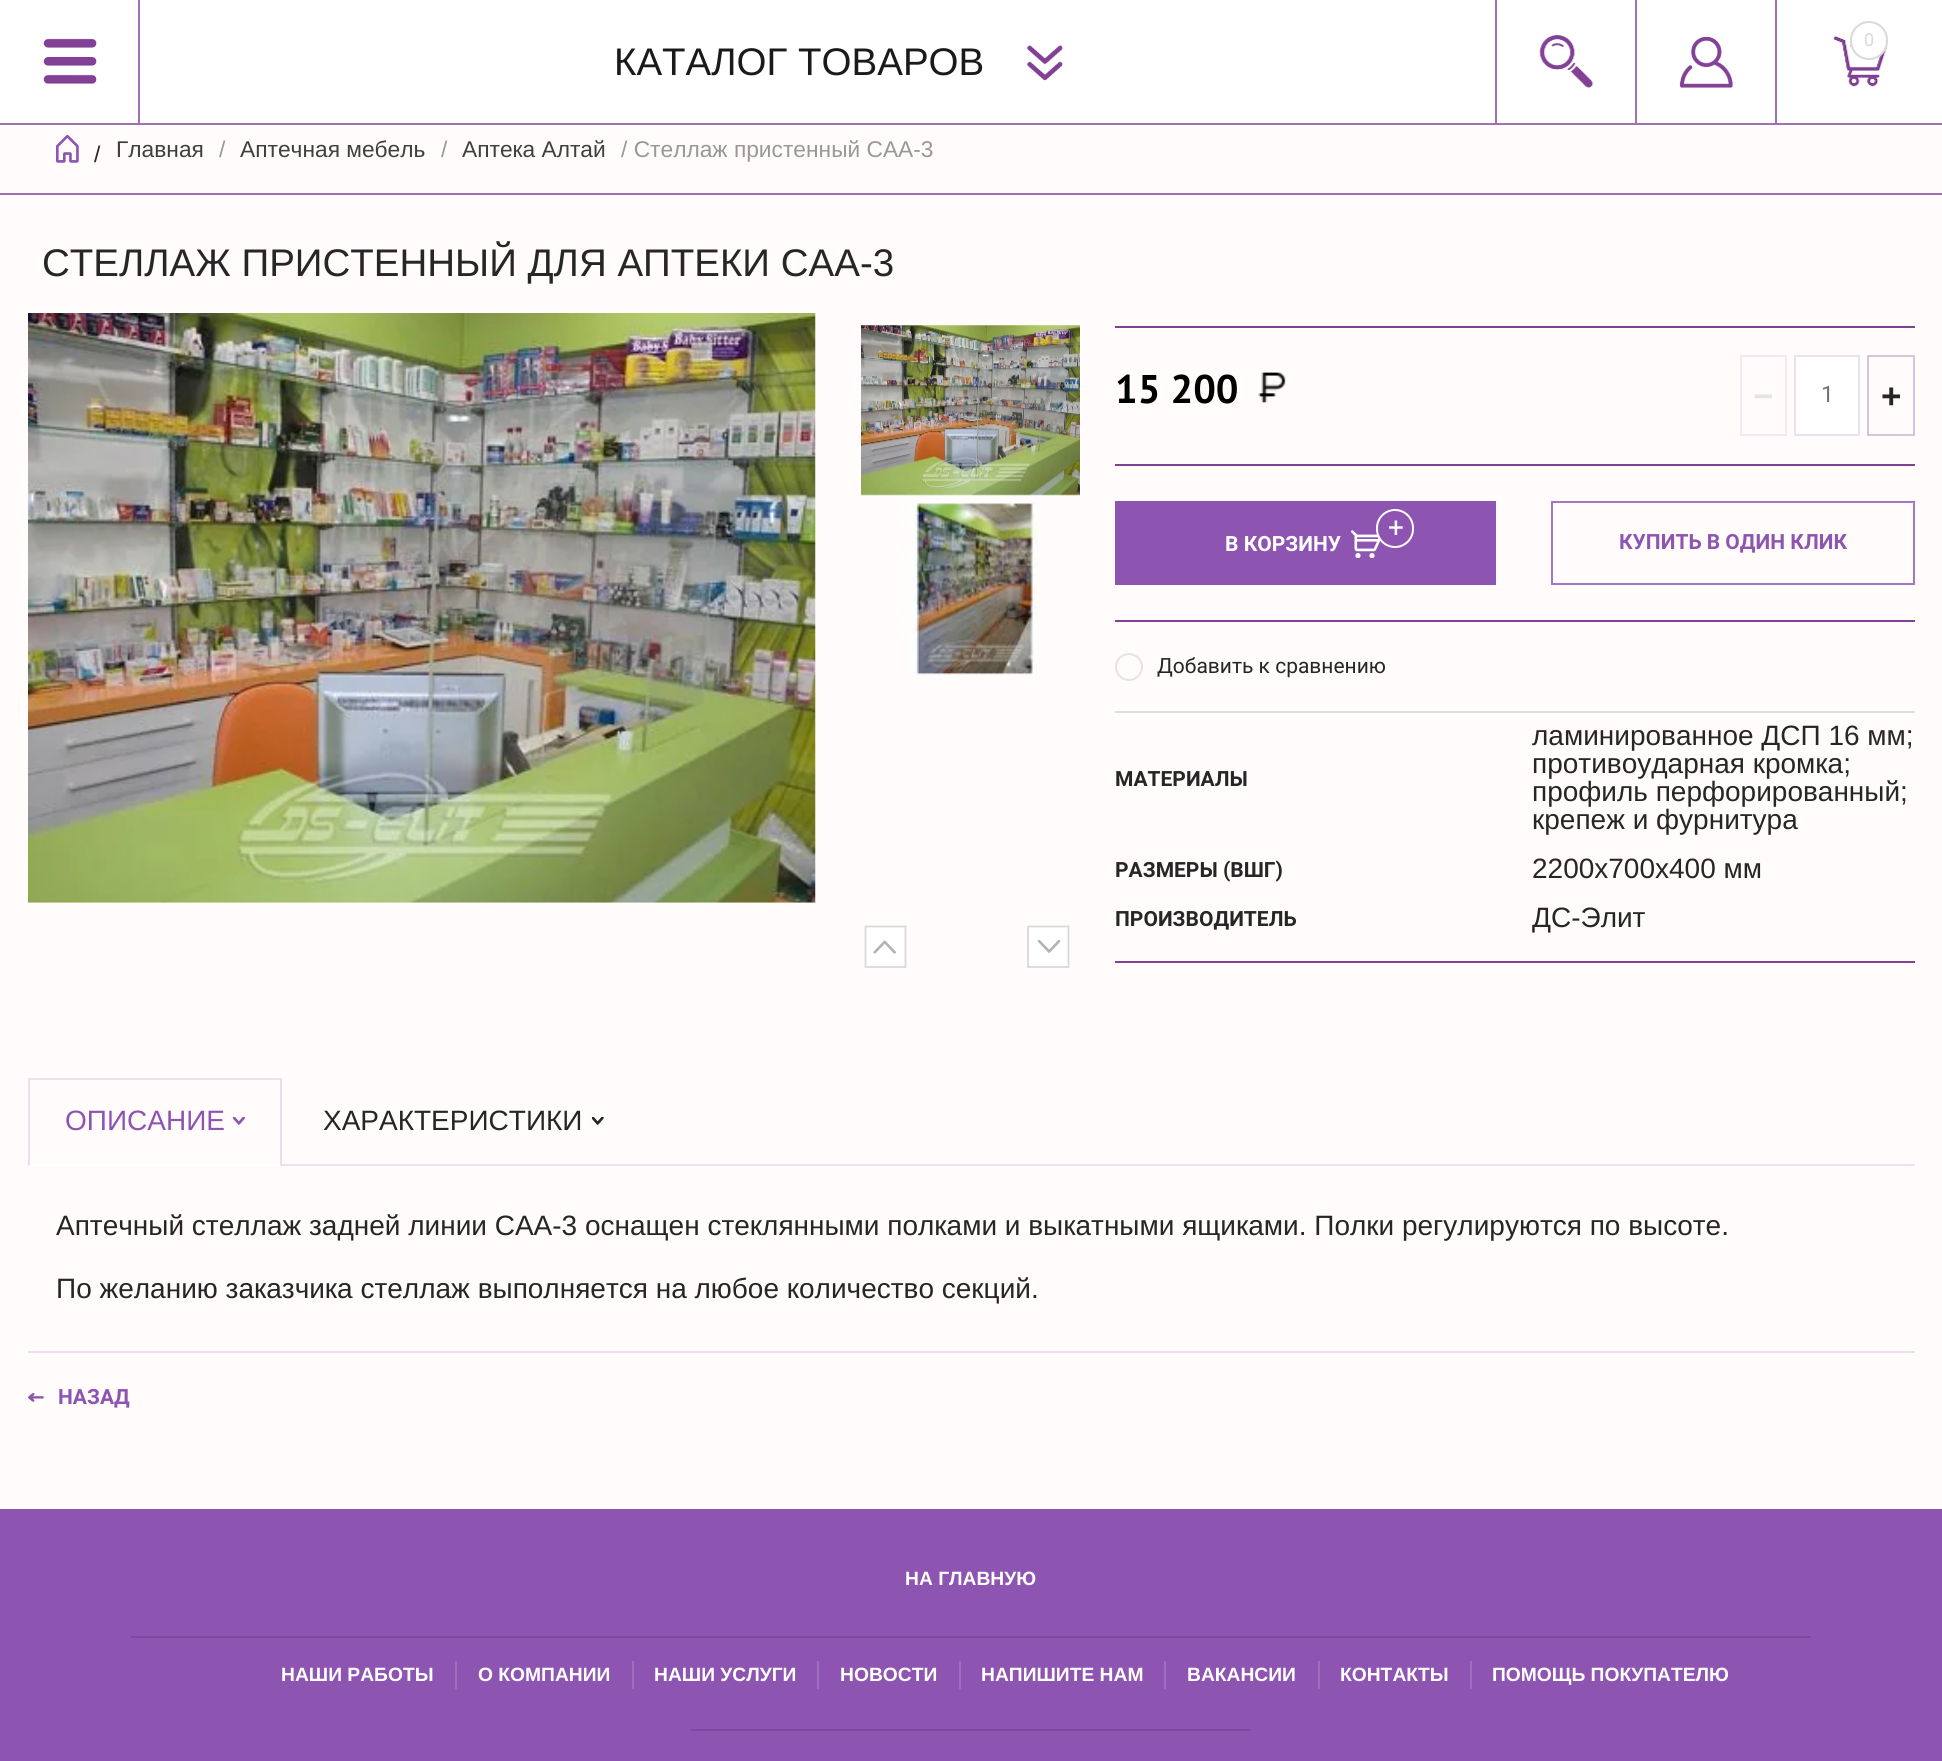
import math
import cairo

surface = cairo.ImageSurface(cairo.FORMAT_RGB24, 1942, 1761)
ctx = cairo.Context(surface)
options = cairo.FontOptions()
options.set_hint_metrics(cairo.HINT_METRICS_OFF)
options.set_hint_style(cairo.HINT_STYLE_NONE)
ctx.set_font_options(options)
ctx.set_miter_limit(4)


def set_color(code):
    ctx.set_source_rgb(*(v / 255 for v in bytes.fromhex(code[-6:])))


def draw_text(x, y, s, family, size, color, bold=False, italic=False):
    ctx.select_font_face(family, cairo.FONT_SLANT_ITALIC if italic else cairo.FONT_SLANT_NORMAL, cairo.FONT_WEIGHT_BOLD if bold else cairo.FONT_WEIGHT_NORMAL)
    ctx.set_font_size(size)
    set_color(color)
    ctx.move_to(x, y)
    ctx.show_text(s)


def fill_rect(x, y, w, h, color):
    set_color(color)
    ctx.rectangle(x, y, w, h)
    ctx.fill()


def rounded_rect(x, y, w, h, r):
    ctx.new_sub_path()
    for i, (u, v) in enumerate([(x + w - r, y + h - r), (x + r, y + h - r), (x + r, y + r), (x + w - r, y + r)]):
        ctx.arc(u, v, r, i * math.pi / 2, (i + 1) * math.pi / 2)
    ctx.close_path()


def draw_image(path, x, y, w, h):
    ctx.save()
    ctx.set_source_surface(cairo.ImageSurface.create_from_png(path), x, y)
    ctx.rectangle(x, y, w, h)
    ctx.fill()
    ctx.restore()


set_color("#fffcfb")
ctx.paint()
fill_rect(0, 124, 1942, 1, "#a16fb0")
fill_rect(0, 0, 1942, 123, "#ffffff")
fill_rect(0, 123, 1942, 1, "#a170b1")
draw_image("assets/img1.png", 43, 38, 54, 46)
fill_rect(138, 0, 2, 123, "#a170b1")
fill_rect(1495, 0, 2, 123, "#a170b1")
draw_image("assets/img2.png", 1539, 35, 55, 53)
draw_image("assets/img3.png", 1679, 37, 54, 51)
fill_rect(1635, 0, 2, 123, "#a170b1")
draw_image("assets/img4.png", 1833, 36, 55, 51)
fill_rect(1775, 0, 2, 123, "#a170b1")
set_color("#ffffff")
rounded_rect(1850, 21, 38, 39, 19)
ctx.fill()
rounded_rect(1851, 22, 36, 37, 18)
ctx.set_source_rgba(0, 0, 0, 0.15)
ctx.stroke()
draw_text(1864, 46, "0", "Roboto", 18, "#d9d9d9")
draw_text(614, 75, "КАТАЛОГ ТОВАРОВ", "Liberation Sans", 38.5, "#1a1a1a")
draw_image("assets/img5.png", 1027, 45, 36, 36)
fill_rect(0, 193, 1942, 2, "#a16fb0")
draw_image("assets/img6.png", 56, 135, 23, 28)
draw_text(94, 162, "/", "Liberation Sans", 22.75, "#262626")
draw_text(116, 157, "Главная", "Liberation Sans", 22.75, "#403f3f")
draw_text(219, 157, "/", "Liberation Sans", 22.75, "#999797")
draw_text(240, 157, "Аптечная мебель", "Liberation Sans", 22.75, "#403f3f")
draw_text(441, 157, "/", "Liberation Sans", 22.75, "#999797")
draw_text(462, 157, "Аптека Алтай", "Liberation Sans", 22.75, "#403f3f")
draw_text(621, 157, "/ Стеллаж пристенный САА-3", "Liberation Sans", 22.75, "#999797")
draw_text(42, 276, "СТЕЛЛАЖ ПРИСТЕННЫЙ ДЛЯ АПТЕКИ САА-3", "Liberation Sans", 38.5, "#262626")
draw_image("assets/img7.png", 28, 313, 788, 590)
draw_image("assets/img8.png", 861, 325, 219, 171)
draw_image("assets/img9.png", 909, 503, 129, 172)
fill_rect(864, 926, 42, 42, "#ffffff")
draw_image("assets/img10.png", 873, 940, 23, 14)
ctx.new_path()
ctx.move_to(865.5, 967)
ctx.line_to(865.5, 926.5)
ctx.line_to(905.5, 926.5)
ctx.line_to(905.5, 967)
ctx.close_path()
set_color("#d9d9d9")
ctx.set_line_width(1.8)
ctx.stroke()
fill_rect(1027, 926, 42, 42, "#ffffff")
draw_image("assets/img11.png", 1037, 940, 24, 13)
ctx.new_path()
ctx.move_to(1068.5, 926.5)
ctx.line_to(1068.5, 967)
ctx.line_to(1028, 967)
ctx.line_to(1028, 926.5)
ctx.close_path()
set_color("#d9d9d9")
ctx.stroke()
fill_rect(1115, 326, 800, 2, "#824097")
fill_rect(1115, 464, 800, 2, "#824097")
draw_text(1115, 403, "15 200", "PT Sans", 40, "#000000", bold=True)
draw_image("assets/img12.png", 1258, 372, 28, 31)
ctx.rectangle(1741, 356, 45, 79)
set_color("#f3e9f1")
ctx.set_line_width(2)
ctx.stroke()
draw_text(1753, 408, "−", "Liberation Sans", 35, "#e6e3e2", bold=True)
set_color("#ffffff")
ctx.rectangle(1795, 356, 64, 79)
ctx.fill_preserve()
set_color("#ece2ef")
ctx.stroke()
draw_text(1821, 402, "1", "Roboto", 22.75, "#737373")
ctx.rectangle(1868, 356, 46, 79)
set_color("#dac4dd")
ctx.stroke()
draw_text(1881, 408, "+", "Liberation Sans", 35, "#262626", bold=True)
fill_rect(1115, 501, 381, 84, "#8e54b2")
draw_image("assets/img13.png", 1351, 530, 30, 28)
rounded_rect(1377, 510, 36, 37, 18)
ctx.fill_preserve()
set_color("#ffffff")
ctx.stroke()
draw_text(1388, 537, "+", "Roboto", 28, "#ffffff")
draw_text(1225, 551, "В КОРЗИНУ", "Roboto", 21, "#ffffff", bold=True)
ctx.rectangle(1552, 502, 362, 82)
set_color("#a577c2")
ctx.stroke()
draw_text(1619, 549, "КУПИТЬ В ОДИН КЛИК", "Roboto", 21, "#8e54b2", bold=True)
fill_rect(1115, 620, 800, 2, "#824097")
fill_rect(1115, 961, 800, 2, "#824097")
fill_rect(1115, 711, 800, 2, "#dedede")
ctx.new_path()
ctx.arc(1129, 667, 13, 0, 2 * math.pi)
set_color("#e6e3e2")
ctx.stroke()
draw_text(1157, 673, "Добавить к сравнению", "Roboto", 21, "#262626")
draw_text(1115, 786, "МАТЕРИАЛЫ", "Roboto", 21, "#262626", bold=True)
draw_text(1532, 745, "ламинированное ДСП 16 мм;", "Liberation Sans", 28, "#262626")
draw_text(1532, 773, "противоударная кромка;", "Liberation Sans", 28, "#262626")
draw_text(1532, 801, "профиль перфорированный;", "Liberation Sans", 28, "#262626")
draw_text(1532, 829, "крепеж и фурнитура", "Liberation Sans", 28, "#262626")
draw_text(1115, 877, "РАЗМЕРЫ (ВШГ)", "Roboto", 21, "#262626", bold=True)
draw_text(1532, 878, "2200х700х400 мм", "Liberation Sans", 28, "#262626")
draw_text(1115, 926, "ПРОИЗВОДИТЕЛЬ", "Roboto", 21, "#262626", bold=True)
draw_text(1532, 927, "ДС-Элит", "Liberation Sans", 28, "#262626")
fill_rect(28, 1351, 1887, 2, "#ece0ec")
ctx.new_path()
ctx.move_to(28, 1078)
ctx.line_to(282, 1078)
ctx.line_to(280, 1080)
ctx.line_to(30, 1080)
ctx.close_path()
ctx.fill()
fill_rect(28, 1164, 1887, 2, "#ece0ec")
ctx.set_source_rgba(0.51, 0.251, 0.592, 0.15)
ctx.new_path()
ctx.move_to(282, 1078)
ctx.line_to(282, 1166)
ctx.line_to(280, 1164)
ctx.line_to(280, 1080)
ctx.close_path()
ctx.fill()
set_color("#ffffff")
ctx.new_path()
ctx.move_to(282, 1166)
ctx.line_to(28, 1166)
ctx.line_to(30, 1164)
ctx.line_to(280, 1164)
ctx.close_path()
ctx.fill()
ctx.set_source_rgba(0.51, 0.251, 0.592, 0.15)
ctx.new_path()
ctx.move_to(28, 1166)
ctx.line_to(28, 1078)
ctx.line_to(30, 1080)
ctx.line_to(30, 1164)
ctx.close_path()
ctx.fill()
draw_text(65, 1130, "ОПИСАНИЕ", "Liberation Sans", 28, "#8e54b2")
draw_image("assets/img14.png", 233, 1117, 12, 8)
draw_text(323, 1130, "ХАРАКТЕРИСТИКИ", "Liberation Sans", 28, "#262626")
draw_image("assets/img15.png", 592, 1117, 12, 8)
draw_text(56, 1235, "Аптечный стеллаж задней линии САА-3 оснащен стеклянными полками и выкатными ящиками. Полки регулируются по высоте.", "Liberation Sans", 28, "#262626")
draw_text(56, 1298, "По желанию заказчика стеллаж выполняется на любое количество секций.", "Liberation Sans", 28, "#262626")
draw_image("assets/img16.png", 28, 1393, 16, 9)
draw_text(58, 1404, "НАЗАД", "Roboto", 21, "#8e54b2", bold=True)
fill_rect(0, 1509, 1942, 252, "#8e54b2")
fill_rect(131, 1636, 1680, 2, "#85459e")
draw_text(905, 1585, "НА ГЛАВНУЮ", "Liberation Sans", 19.25, "#ffffff", bold=True)
draw_text(281, 1681, "НАШИ РАБОТЫ", "Liberation Sans", 19.25, "#ffffff", bold=True)
fill_rect(455, 1661, 2, 28, "#9f6ebe")
draw_text(478, 1681, "О КОМПАНИИ", "Liberation Sans", 19.25, "#ffffff", bold=True)
fill_rect(632, 1661, 2, 28, "#9f6ebe")
draw_text(654, 1681, "НАШИ УСЛУГИ", "Liberation Sans", 19.25, "#ffffff", bold=True)
fill_rect(817, 1661, 2, 28, "#9f6ebe")
draw_text(840, 1681, "НОВОСТИ", "Liberation Sans", 19.25, "#ffffff", bold=True)
fill_rect(959, 1661, 2, 28, "#9f6ebe")
draw_text(981, 1681, "НАПИШИТЕ НАМ", "Liberation Sans", 19.25, "#ffffff", bold=True)
fill_rect(1164, 1661, 2, 28, "#9f6ebe")
draw_text(1187, 1681, "ВАКАНСИИ", "Liberation Sans", 19.25, "#ffffff", bold=True)
fill_rect(1318, 1661, 2, 28, "#9f6ebe")
draw_text(1340, 1681, "КОНТАКТЫ", "Liberation Sans", 19.25, "#ffffff", bold=True)
fill_rect(1470, 1661, 2, 28, "#9f6ebe")
draw_text(1492, 1681, "ПОМОЩЬ ПОКУПАТЕЛЮ", "Liberation Sans", 19.25, "#ffffff", bold=True)
fill_rect(691, 1729, 560, 2, "#85459e")
surface.write_to_png("output.png")
